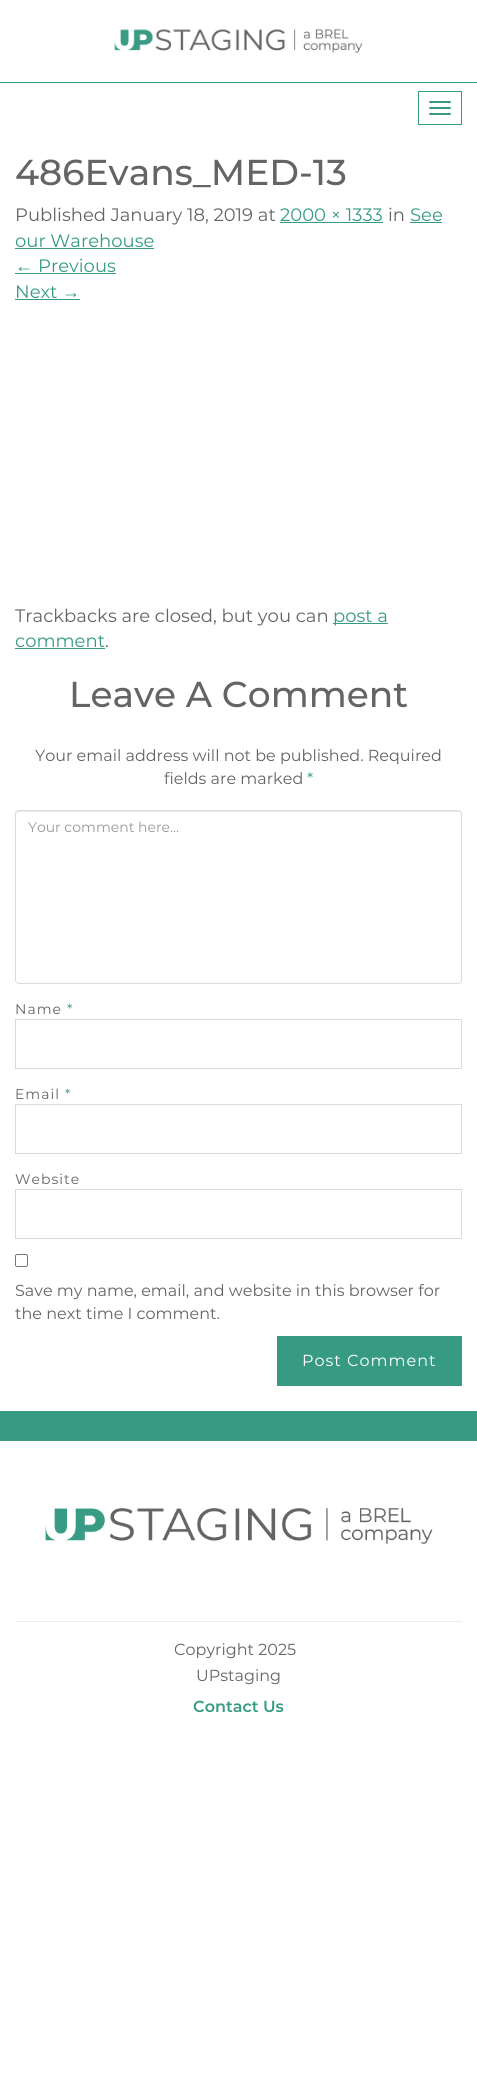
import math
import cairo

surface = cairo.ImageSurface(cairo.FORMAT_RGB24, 477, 2078)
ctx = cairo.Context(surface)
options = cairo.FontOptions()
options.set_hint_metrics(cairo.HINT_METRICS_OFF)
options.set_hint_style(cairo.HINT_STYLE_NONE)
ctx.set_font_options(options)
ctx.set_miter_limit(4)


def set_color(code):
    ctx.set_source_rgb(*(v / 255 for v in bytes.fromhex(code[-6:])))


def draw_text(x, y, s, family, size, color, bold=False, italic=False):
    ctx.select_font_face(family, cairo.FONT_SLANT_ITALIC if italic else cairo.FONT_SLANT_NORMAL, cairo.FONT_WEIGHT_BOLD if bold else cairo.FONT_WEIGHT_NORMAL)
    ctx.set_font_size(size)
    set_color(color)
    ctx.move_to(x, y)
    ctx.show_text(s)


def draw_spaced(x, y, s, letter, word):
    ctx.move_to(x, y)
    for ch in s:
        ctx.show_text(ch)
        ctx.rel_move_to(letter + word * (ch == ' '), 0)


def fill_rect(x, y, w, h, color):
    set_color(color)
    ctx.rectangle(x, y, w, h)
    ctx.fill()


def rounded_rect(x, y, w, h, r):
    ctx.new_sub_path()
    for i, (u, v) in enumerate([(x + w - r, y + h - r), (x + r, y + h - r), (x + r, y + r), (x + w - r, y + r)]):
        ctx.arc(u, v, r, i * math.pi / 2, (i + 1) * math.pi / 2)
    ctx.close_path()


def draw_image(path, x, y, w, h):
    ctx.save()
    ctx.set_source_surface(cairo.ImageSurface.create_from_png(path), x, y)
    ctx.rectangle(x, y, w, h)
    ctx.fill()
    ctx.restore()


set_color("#ffffff")
ctx.paint()
draw_image("assets/img1.png", 114, 29, 249, 24)
fill_rect(0, 82, 477, 1, "#379b83")
ctx.rectangle(418.5, 91.5, 43, 33)
ctx.set_line_width(1)
ctx.stroke()
rounded_rect(429, 101, 22, 2, 1)
ctx.fill()
rounded_rect(429, 107, 22, 2, 1)
ctx.fill()
rounded_rect(429, 113, 22, 2, 1)
ctx.fill()
draw_text(15, 185, "486Evans_MED-13", "Montserrat Medium", 36, "#636564")
draw_text(15, 221, "Published January 18, 2019 at", "Montserrat", 18, "#636564")
draw_text(280, 221, "2000 × 1333", "Montserrat", 18, "#379b83")
fill_rect(280, 222, 103, 1, "#379b83")
draw_text(388, 221, "in", "Montserrat", 18, "#636564")
draw_text(410, 221, "See", "Montserrat", 18, "#379b83")
fill_rect(410, 222, 32, 1, "#379b83")
draw_text(15, 247, "our Warehouse", "Montserrat", 18, "#379b83")
fill_rect(15, 248, 139, 1, "#379b83")
draw_text(15, 272, "←", "Liberation Sans", 18, "#379b83")
fill_rect(15, 273, 101, 1, "#379b83")
draw_text(38, 272, "Previous", "Montserrat", 18, "#379b83")
draw_text(15, 298, "Next", "Montserrat", 18, "#379b83")
draw_text(62, 298, "→", "Liberation Sans", 18, "#379b83")
fill_rect(15, 299, 65, 1, "#379b83")
draw_text(15, 622, "Trackbacks are closed, but you can", "Montserrat", 18, "#636564")
fill_rect(333, 623, 55, 1, "#379b83")
draw_text(333, 622, "post a", "Montserrat", 18, "#379b83")
draw_text(15, 647, "comment", "Montserrat", 18, "#379b83")
fill_rect(15, 648, 90, 1, "#379b83")
draw_text(105, 647, ".", "Montserrat", 18, "#636564")
draw_text(69, 707, "Leave A Comment", "Montserrat Medium", 36, "#636564")
draw_text(35, 761, "Your email address will not be published. Required", "Montserrat", 16, "#636564")
draw_text(164, 784, "fields are marked", "Montserrat", 16, "#636564")
draw_text(307, 784, "*", "Montserrat", 16, "#379b83")
set_color("#ececec")
ctx.new_path()
ctx.move_to(19, 812)
ctx.line_to(458, 812)
ctx.curve_to(460, 812, 461, 813, 461, 815)
ctx.curve_to(461, 813, 460, 811, 458, 811)
ctx.line_to(18, 811)
ctx.line_to(16, 813)
ctx.line_to(16, 815)
ctx.curve_to(16, 813, 17, 812, 19, 812)
ctx.close_path()
ctx.fill()
rounded_rect(15.5, 810.5, 446, 173, 3.5)
set_color("#dadada")
ctx.stroke()
draw_text(28, 832, "Your comment here...", "Montserrat", 14, "#999999")
set_color("#636564")
draw_spaced(15, 1014, "Name", 1, 0)
set_color("#379b83")
draw_spaced(67, 1014, "*", 1, 0)
ctx.rectangle(15.5, 1019.5, 446, 49)
set_color("#dadada")
ctx.stroke()
set_color("#636564")
draw_spaced(15, 1099, "Email", 1, 0)
set_color("#379b83")
draw_spaced(65, 1099, "*", 1, 0)
ctx.rectangle(15.5, 1104.5, 446, 49)
set_color("#dadada")
ctx.stroke()
set_color("#636564")
draw_spaced(15, 1184, "Website", 1, 0)
ctx.rectangle(15.5, 1189.5, 446, 49)
set_color("#dadada")
ctx.stroke()
rounded_rect(15.5, 1254.5, 12, 12, 1.5)
set_color("#767676")
ctx.stroke()
draw_text(15, 1296, "Save my name, email, and website in this browser for", "Montserrat", 16, "#636564")
draw_text(15, 1319, "the next time I comment.", "Montserrat", 16, "#636564")
fill_rect(277, 1336, 185, 50, "#379b83")
set_color("#ffffff")
draw_spaced(302, 1366, "Post Comment", 1, 0)
fill_rect(0, 1411, 477, 30, "#379b83")
draw_image("assets/img2.png", 45, 1508, 388, 36)
fill_rect(15, 1621, 447, 1, "#eeeeee")
draw_text(174, 1655, "Copyright 2025", "Montserrat", 16, "#636564")
draw_text(196, 1681, "UPstaging", "Montserrat", 16, "#636564")
draw_text(193, 1712, "Contact Us", "Montserrat SemiBold", 16, "#379b83")
surface.write_to_png("output.png")
